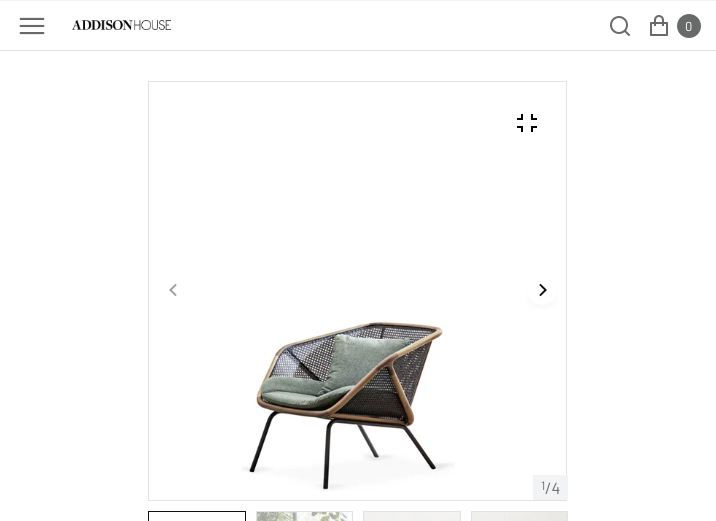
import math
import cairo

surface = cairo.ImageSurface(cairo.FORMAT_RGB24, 716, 521)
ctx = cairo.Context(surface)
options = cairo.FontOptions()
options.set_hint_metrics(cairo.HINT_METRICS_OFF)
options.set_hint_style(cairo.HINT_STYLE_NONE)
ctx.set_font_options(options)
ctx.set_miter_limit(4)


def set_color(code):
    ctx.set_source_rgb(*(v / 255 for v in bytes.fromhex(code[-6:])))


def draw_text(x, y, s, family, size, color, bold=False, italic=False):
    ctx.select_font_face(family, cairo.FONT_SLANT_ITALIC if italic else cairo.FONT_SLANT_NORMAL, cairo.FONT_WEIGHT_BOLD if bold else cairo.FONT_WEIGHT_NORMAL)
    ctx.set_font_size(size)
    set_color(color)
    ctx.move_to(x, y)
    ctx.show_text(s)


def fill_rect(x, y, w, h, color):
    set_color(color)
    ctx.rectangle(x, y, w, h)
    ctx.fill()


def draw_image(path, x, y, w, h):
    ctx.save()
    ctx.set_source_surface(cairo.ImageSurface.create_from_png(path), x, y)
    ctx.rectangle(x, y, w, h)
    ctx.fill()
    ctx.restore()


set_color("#ffffff")
ctx.paint()
fill_rect(0, 0, 716, 1, "#f2f3f5")
fill_rect(0, 50, 716, 1, "#e1e2e4")
draw_image("assets/img1.png", 19, 17, 26, 18)
draw_image("assets/img2.png", 72, 20, 99, 10)
draw_image("assets/img3.png", 610, 16, 21, 21)
draw_image("assets/img4.png", 650, 15, 18, 21)
set_color("#686969")
ctx.arc(689, 26, 12, 0, 2 * math.pi)
ctx.fill()
draw_text(685, 31, "0", "Barlow", 13, "#ffffff")
draw_image("assets/img5.png", 241, 320, 214, 171)
ctx.rectangle(148.5, 81.5, 418, 419)
set_color("#e1e2e4")
ctx.set_line_width(1)
ctx.stroke()
draw_image("assets/img6.png", 517, 114, 20, 18)
draw_image("assets/img7.png", 166, 283, 11, 21)
draw_image("assets/img8.png", 526, 283, 32, 26)
fill_rect(533, 475, 35, 25, "#f2f3f5")
draw_text(541, 490, "1", "Barlow", 12, "#686969")
draw_text(545, 494, "/4", "Barlow", 16, "#686969")
ctx.rectangle(148.5, 511.5, 97, 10)
set_color("#121212")
ctx.stroke()
draw_image("assets/img9.png", 257, 512, 95, 9)
ctx.rectangle(256.5, 511.5, 96, 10)
set_color("#e1e2e4")
ctx.stroke()
draw_image("assets/img10.png", 364, 512, 96, 9)
ctx.rectangle(363.5, 511.5, 97, 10)
ctx.stroke()
draw_image("assets/img11.png", 472, 512, 95, 9)
ctx.rectangle(471.5, 511.5, 96, 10)
ctx.stroke()
surface.write_to_png("output.png")
